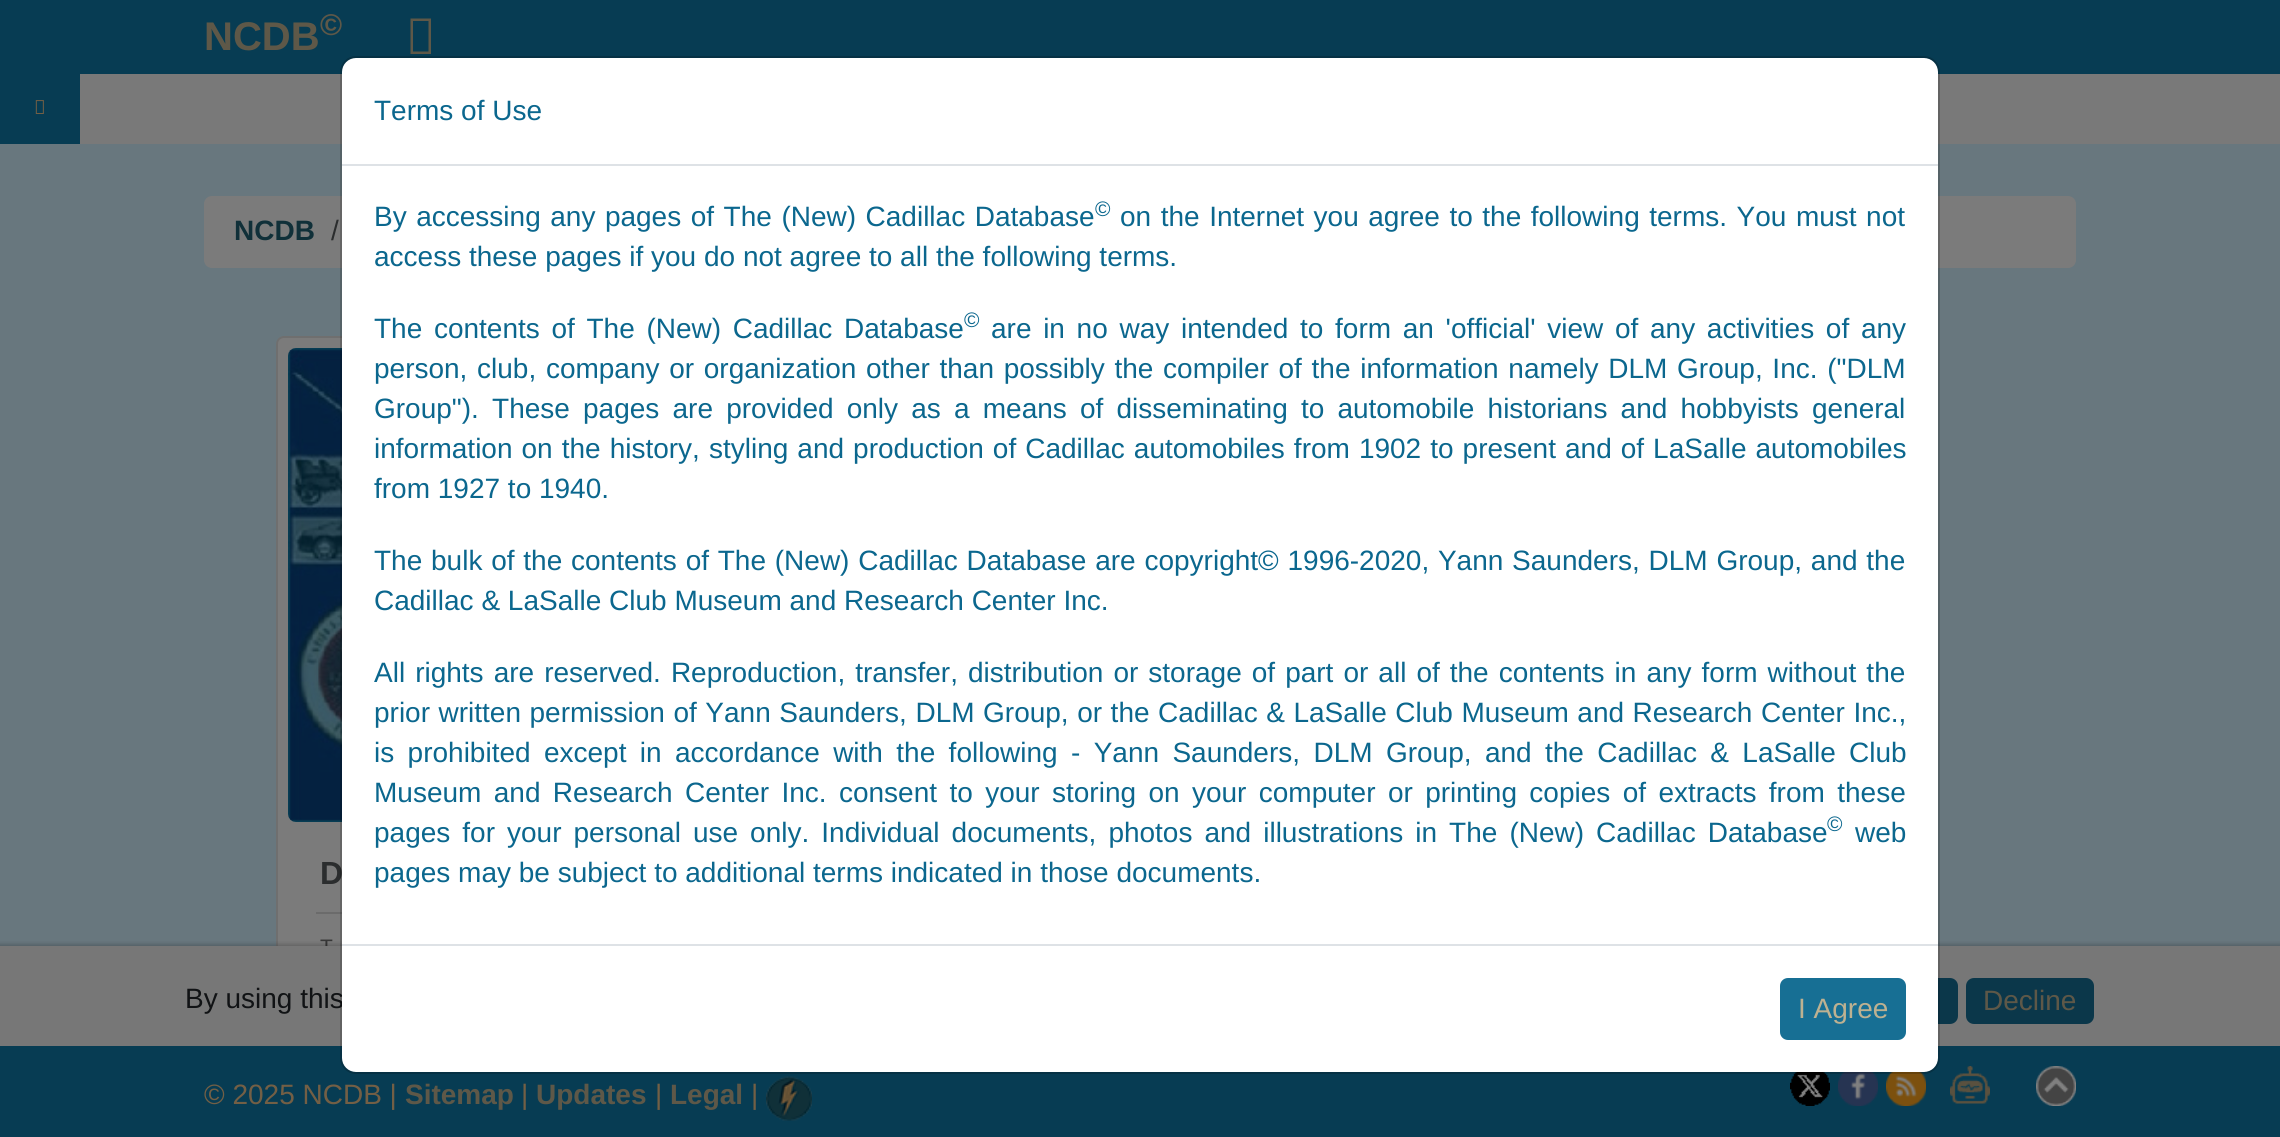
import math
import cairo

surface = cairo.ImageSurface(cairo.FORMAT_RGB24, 2280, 1137)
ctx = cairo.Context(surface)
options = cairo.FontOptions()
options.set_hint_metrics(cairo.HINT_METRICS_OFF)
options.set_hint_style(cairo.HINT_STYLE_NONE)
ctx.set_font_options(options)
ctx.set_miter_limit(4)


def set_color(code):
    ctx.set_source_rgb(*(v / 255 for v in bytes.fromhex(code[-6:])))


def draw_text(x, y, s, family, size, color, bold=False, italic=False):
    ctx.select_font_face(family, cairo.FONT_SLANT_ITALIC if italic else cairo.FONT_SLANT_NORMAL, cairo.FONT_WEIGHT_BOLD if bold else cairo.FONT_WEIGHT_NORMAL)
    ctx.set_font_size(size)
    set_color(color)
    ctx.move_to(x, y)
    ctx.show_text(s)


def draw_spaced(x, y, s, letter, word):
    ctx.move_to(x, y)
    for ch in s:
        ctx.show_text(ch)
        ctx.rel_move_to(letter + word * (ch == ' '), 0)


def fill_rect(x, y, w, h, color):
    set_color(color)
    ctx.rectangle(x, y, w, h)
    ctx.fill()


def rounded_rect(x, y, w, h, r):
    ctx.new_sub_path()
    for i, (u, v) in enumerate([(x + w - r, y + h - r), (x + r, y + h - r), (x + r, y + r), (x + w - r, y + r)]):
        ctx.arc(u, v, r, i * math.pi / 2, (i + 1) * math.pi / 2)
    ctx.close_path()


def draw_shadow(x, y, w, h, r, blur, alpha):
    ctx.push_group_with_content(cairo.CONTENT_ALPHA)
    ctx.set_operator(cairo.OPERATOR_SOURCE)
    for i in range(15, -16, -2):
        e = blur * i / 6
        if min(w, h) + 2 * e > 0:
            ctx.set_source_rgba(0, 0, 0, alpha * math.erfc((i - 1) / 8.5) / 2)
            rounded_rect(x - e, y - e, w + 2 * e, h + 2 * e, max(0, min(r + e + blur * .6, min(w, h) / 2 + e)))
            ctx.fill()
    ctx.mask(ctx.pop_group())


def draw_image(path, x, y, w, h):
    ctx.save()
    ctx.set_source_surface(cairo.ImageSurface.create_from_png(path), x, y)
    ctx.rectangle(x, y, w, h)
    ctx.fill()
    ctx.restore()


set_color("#68777e")
ctx.paint()
fill_rect(0, 0, 2280, 74, "#073c53")
draw_text(204, 50, "NCDB", "Liberation Sans", 40, "#5e5848", bold=True)
draw_text(320, 35, "©", "Liberation Sans", 30, "#5e5848", bold=True)
ctx.new_path()
ctx.move_to(410.5, 54)
ctx.line_to(410.5, 18.5)
ctx.line_to(431, 18.5)
ctx.line_to(431, 54)
ctx.close_path()
ctx.move_to(413, 51.5)
ctx.line_to(428.5, 51.5)
ctx.line_to(428.5, 21)
ctx.line_to(413, 21)
ctx.close_path()
ctx.fill()
fill_rect(80, 74, 2200, 70, "#797979")
fill_rect(0, 74, 80, 70, "#073c53")
draw_image("assets/img1.png", 35, 100, 9, 14)
set_color("#7b7b7b")
rounded_rect(204, 196, 1872, 72, 8)
ctx.fill()
draw_text(234, 240, "NCDB", "Liberation Sans", 28, "#103039", bold=True)
draw_text(331, 240, "/", "Liberation Sans", 28, "#2b2d2e")
set_color("#7b7b7b")
rounded_rect(277, 337, 678, 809, 7)
ctx.fill_preserve()
set_color("#6f6f6f")
ctx.stroke()
draw_image("assets/img2.png", 288, 348, 54, 474)
draw_text(320, 884, "D", "Liberation Sans", 32, "#2b2d2e", bold=True)
fill_rect(316, 912, 26, 2, "#6b6b6b")
draw_text(320, 954, "T", "Liberation Sans", 21, "#373737")
set_color("#000000")
draw_shadow(-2, 944, 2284, 114, 0, 2, 0.2)
fill_rect(0, 946, 2280, 100, "#777777")
draw_text(185, 1008, "By using this", "Liberation Sans", 28, "#111315")
set_color("#0b374a")
rounded_rect(1837, 979, 120, 44, 7)
ctx.fill_preserve()
ctx.stroke()
fill_rect(0, 1046, 2280, 91, "#073c53")
set_color("#ffffff")
rounded_rect(342, 58, 1596, 1014, 14)
ctx.fill()
draw_image("assets/img4.png", 1790, 1072, 40, 34)
draw_image("assets/img5.png", 1838, 1072, 40, 34)
draw_image("assets/img6.png", 1886, 1072, 40, 34)
rounded_rect(341, 57, 1598, 1016, 15)
ctx.set_source_rgba(0, 0, 0, 0.18)
ctx.stroke()
fill_rect(342, 164, 1596, 2, "#dee2e6")
draw_text(374, 120, "Terms of Use", "Liberation Sans", 28, "#0b678e")
draw_spaced(374, 226, "By accessing any pages of The (New) Cadillac Database", 0, 1.75)
draw_text(1095, 216, "©", "Liberation Sans", 21, "#0b678e")
ctx.set_font_size(28)
draw_spaced(1120, 226, "on the Internet you agree to the following terms. You must not", 0, 1.75)
draw_text(374, 266, "access these pages if you do not agree to all the following terms.", "Liberation Sans", 28, "#0b678e")
draw_spaced(374, 338, "The contents of The (New) Cadillac Database", 0, 3.9)
draw_text(964, 327, "©", "Liberation Sans", 21, "#0b678e")
ctx.set_font_size(28)
draw_spaced(991, 338, "are in no way intended to form an 'official' view of any activities of any", 0, 3.9)
draw_spaced(374, 378, "person, club, company or organization other than possibly the compiler of the information namely DLM Group, Inc. (\"DLM", 0, 1.9)
draw_spaced(374, 418, "Group\"). These pages are provided only as a means of disseminating to automobile historians and hobbyists general", 0, 5.4)
draw_spaced(374, 458, "information on the history, styling and production of Cadillac automobiles from 1902 to present and of LaSalle automobiles", 0, 1.25)
draw_text(374, 498, "from 1927 to 1940.", "Liberation Sans", 28, "#0b678e")
draw_spaced(374, 570, "The bulk of the contents of The (New) Cadillac Database are copyright© 1996-2020, Yann Saunders, DLM Group, and the", 0, 1)
draw_text(374, 610, "Cadillac & LaSalle Club Museum and Research Center Inc.", "Liberation Sans", 28, "#0b678e")
draw_spaced(374, 682, "All rights are reserved. Reproduction, transfer, distribution or storage of part or all of the contents in any form without the", 0, 2.25)
draw_spaced(374, 722, "prior written permission of Yann Saunders, DLM Group, or the Cadillac & LaSalle Club Museum and Research Center Inc.,", 0, 0.75)
draw_spaced(374, 762, "is prohibited except in accordance with the following - Yann Saunders, DLM Group, and the Cadillac & LaSalle Club", 0, 5.6)
draw_spaced(374, 802, "Museum and Research Center Inc. consent to your storing on your computer or printing copies of extracts from these", 0, 4.6)
draw_spaced(374, 842, "pages for your personal use only. Individual documents, photos and illustrations in The (New) Cadillac Database", 0, 4.25)
draw_text(1827, 831, "©", "Liberation Sans", 21, "#0b678e")
draw_text(1855, 842, "web", "Liberation Sans", 28, "#0b678e")
draw_text(374, 882, "pages may be subject to additional terms indicated in those documents.", "Liberation Sans", 28, "#0b678e")
fill_rect(342, 944, 1596, 2, "#dee2e6")
set_color("#176f94")
rounded_rect(1781, 979, 124, 60, 7)
ctx.fill_preserve()
ctx.stroke()
draw_text(1798, 1018, "I Agree", "Liberation Sans", 28, "#bdb191")
set_color("#0b374a")
rounded_rect(1967, 979, 126, 44, 7)
ctx.fill_preserve()
ctx.stroke()
draw_text(1983, 1010, "Decline", "Liberation Sans", 28, "#5e5848")
draw_text(204, 1104, "© 2025 NCDB |", "Liberation Sans", 28, "#735f45")
draw_text(405, 1104, "Sitemap", "Liberation Sans", 28, "#5e5848", bold=True)
draw_text(521, 1104, "|", "Liberation Sans", 28, "#735f45")
draw_text(536, 1104, "Updates", "Liberation Sans", 28, "#5e5848", bold=True)
draw_text(655, 1104, "|", "Liberation Sans", 28, "#735f45")
draw_text(670, 1104, "Legal", "Liberation Sans", 28, "#5e5848", bold=True)
draw_text(751, 1104, "|", "Liberation Sans", 28, "#735f45")
draw_image("assets/img3.png", 766, 1076, 46, 45)
draw_image("assets/img7.png", 1950, 1066, 40, 38)
draw_image("assets/img8.png", 2036, 1066, 40, 40)
surface.write_to_png("output.png")
